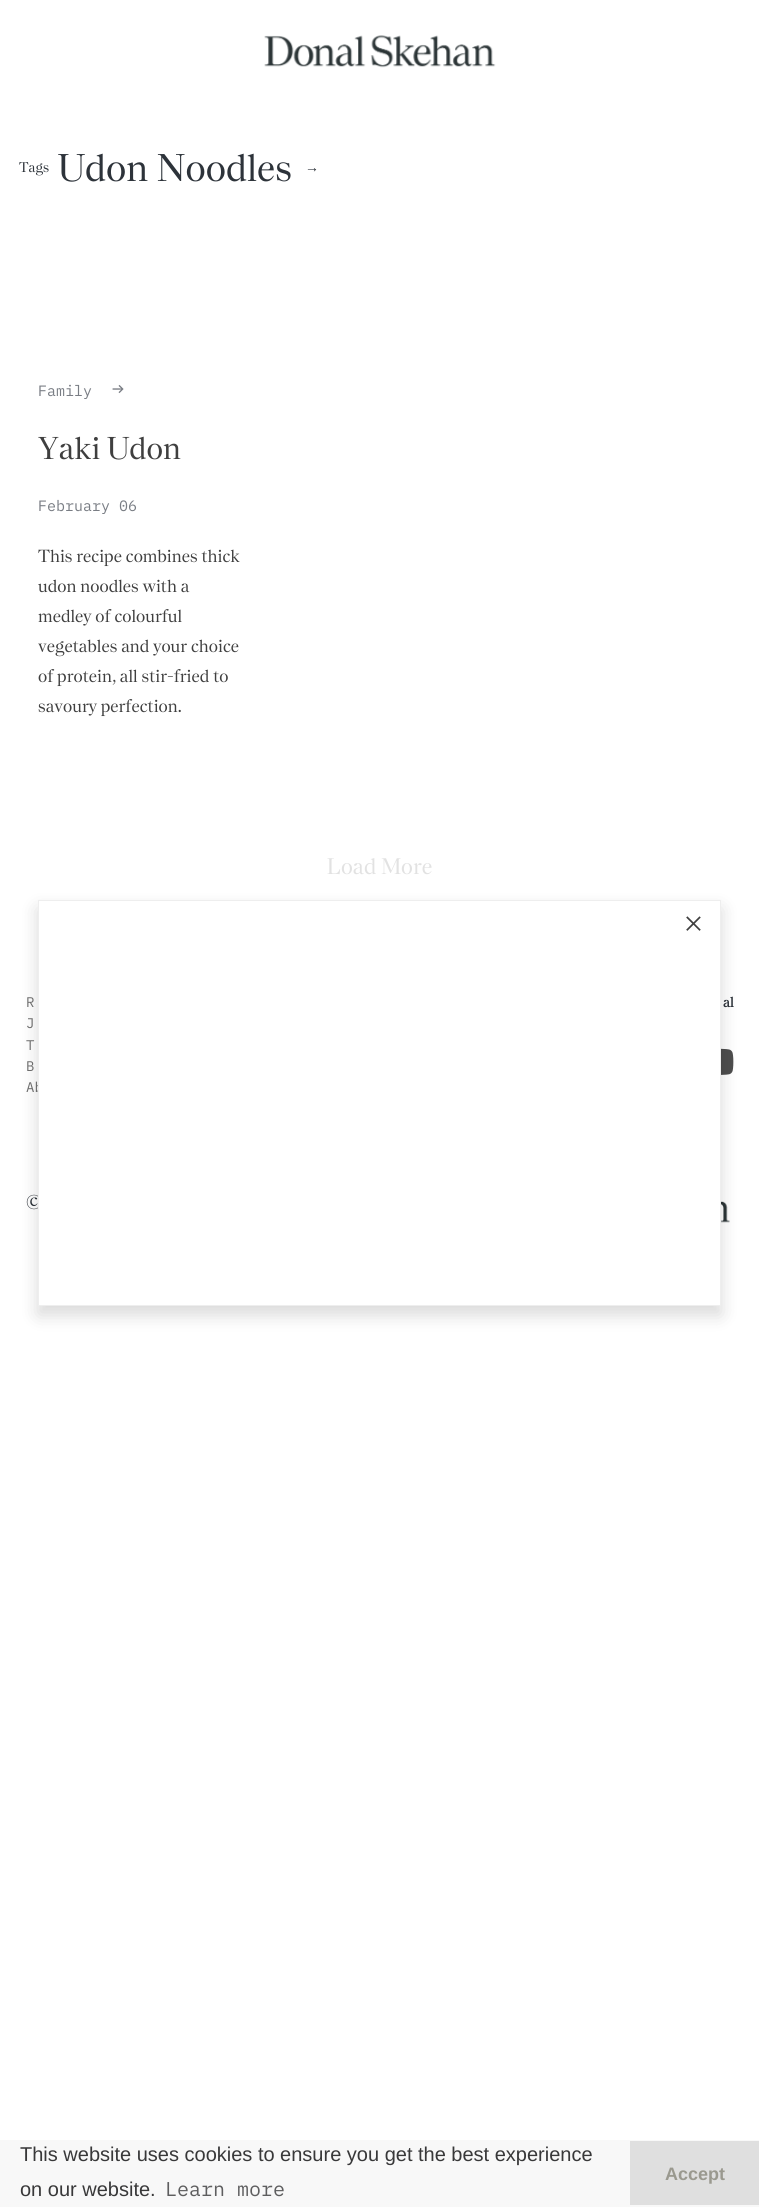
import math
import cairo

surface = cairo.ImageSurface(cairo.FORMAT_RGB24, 759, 2207)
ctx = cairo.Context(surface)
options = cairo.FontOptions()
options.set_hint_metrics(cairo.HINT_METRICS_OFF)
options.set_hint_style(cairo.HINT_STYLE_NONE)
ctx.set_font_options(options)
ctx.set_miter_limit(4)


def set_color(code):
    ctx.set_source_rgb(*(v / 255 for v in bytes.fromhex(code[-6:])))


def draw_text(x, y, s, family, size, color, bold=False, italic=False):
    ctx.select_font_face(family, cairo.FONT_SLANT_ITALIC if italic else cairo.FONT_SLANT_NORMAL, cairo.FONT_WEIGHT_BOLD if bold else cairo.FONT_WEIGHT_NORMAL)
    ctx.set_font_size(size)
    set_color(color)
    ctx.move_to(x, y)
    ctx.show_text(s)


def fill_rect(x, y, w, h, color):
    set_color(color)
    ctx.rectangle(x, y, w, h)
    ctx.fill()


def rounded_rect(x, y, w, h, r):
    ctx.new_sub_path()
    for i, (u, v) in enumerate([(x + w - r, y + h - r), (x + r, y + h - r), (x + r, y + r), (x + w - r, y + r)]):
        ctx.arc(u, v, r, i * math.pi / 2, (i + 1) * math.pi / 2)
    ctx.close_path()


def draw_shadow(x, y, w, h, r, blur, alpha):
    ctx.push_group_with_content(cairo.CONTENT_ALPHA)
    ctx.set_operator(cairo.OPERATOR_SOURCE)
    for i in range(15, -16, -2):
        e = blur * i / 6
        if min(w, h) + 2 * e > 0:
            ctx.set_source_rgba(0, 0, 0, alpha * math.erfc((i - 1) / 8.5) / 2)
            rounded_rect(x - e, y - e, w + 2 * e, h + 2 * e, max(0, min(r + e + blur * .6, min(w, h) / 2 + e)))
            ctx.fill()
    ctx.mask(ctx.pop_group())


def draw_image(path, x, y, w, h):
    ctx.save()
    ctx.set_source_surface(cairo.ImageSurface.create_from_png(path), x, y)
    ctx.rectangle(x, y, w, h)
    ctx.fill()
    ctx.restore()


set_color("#ffffff")
ctx.paint()
draw_image("assets/img1.png", 264, 35, 232, 33)
draw_text(19, 172, "Tags", "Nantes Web", 14, "#2d333a")
draw_text(58, 181, "Udon Noodles", "Nantes Web", 38.5, "#2d333a")
draw_text(305, 172, "→", "Liberation Serif", 14, "#2d333a")
draw_text(38, 396, "Family", "IBM Plex Mono", 15, "#797d84")
draw_text(112, 396, "→", "IBM Plex Mono", 20, "#797d84")
draw_text(38, 459, "Yaki Udon", "Nantes Web", 31.5, "#3f3f3f")
draw_text(38, 511, "February 06", "IBM Plex Mono", 15, "#797d84")
draw_text(38, 562, "This recipe combines thick", "Nantes Web", 17.5, "#3f3f3f")
draw_text(38, 592, "udon noodles with a", "Nantes Web", 17.5, "#3f3f3f")
draw_text(38, 622, "medley of colourful", "Nantes Web", 17.5, "#3f3f3f")
draw_text(38, 652, "vegetables and your choice", "Nantes Web", 17.5, "#3f3f3f")
draw_text(38, 682, "of protein, all stir-fried to", "Nantes Web", 17.5, "#3f3f3f")
draw_text(38, 712, "savoury perfection.", "Nantes Web", 17.5, "#3f3f3f")
draw_text(327, 874, "Load More", "Nantes Web", 22.5, "#e2e2e2")
draw_text(26, 1007, "R", "IBM Plex Mono", 14, "#707070")
draw_text(26, 1028, "J", "IBM Plex Mono", 14, "#707070")
draw_text(26, 1050, "T", "IBM Plex Mono", 14, "#707070")
draw_text(26, 1071, "B", "IBM Plex Mono", 14, "#707070")
draw_text(26, 1092, "Ab", "IBM Plex Mono", 14, "#707070")
draw_text(723, 1007, "al", "Nantes Web", 14, "#2d333a", bold=True)
draw_image("assets/img2.png", 721, 1048, 13, 27)
draw_text(26, 1209, "©", "Nantes Web", 20, "#2d333a")
draw_image("assets/img3.png", 721, 1201, 9, 22)
set_color("#000000")
draw_shadow(38, 909, 683, 406, 0, 9, 0.15)
set_color("#ffffff")
ctx.rectangle(38.5, 900.5, 682, 405)
ctx.fill_preserve()
set_color("#eeeeee")
ctx.set_line_width(1)
ctx.stroke()
draw_text(684, 935, "×", "Nantes Web", 40, "#3f3f3f")
fill_rect(0, 2140, 759, 67, "#f8f8f8")
draw_text(20, 2161, "This website uses cookies to ensure you get the best experience", "Liberation Sans", 20, "#383839")
draw_text(20, 2196, "on our website.", "Liberation Sans", 20, "#383839")
draw_text(165, 2196, "Learn more", "IBM Plex Mono", 20, "#5e5e5f")
fill_rect(630, 2141, 129, 64, "#dfdfdf")
draw_text(665, 2180, "Accept", "Liberation Sans", 18, "#9a998f", bold=True)
surface.write_to_png("output.png")
